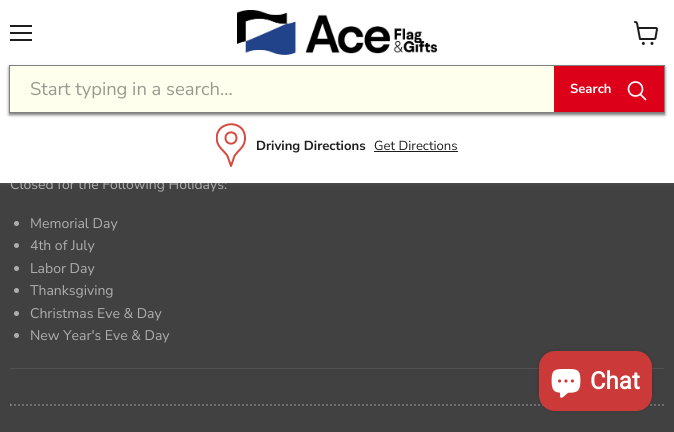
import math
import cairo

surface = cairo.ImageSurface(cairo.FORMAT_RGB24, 674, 432)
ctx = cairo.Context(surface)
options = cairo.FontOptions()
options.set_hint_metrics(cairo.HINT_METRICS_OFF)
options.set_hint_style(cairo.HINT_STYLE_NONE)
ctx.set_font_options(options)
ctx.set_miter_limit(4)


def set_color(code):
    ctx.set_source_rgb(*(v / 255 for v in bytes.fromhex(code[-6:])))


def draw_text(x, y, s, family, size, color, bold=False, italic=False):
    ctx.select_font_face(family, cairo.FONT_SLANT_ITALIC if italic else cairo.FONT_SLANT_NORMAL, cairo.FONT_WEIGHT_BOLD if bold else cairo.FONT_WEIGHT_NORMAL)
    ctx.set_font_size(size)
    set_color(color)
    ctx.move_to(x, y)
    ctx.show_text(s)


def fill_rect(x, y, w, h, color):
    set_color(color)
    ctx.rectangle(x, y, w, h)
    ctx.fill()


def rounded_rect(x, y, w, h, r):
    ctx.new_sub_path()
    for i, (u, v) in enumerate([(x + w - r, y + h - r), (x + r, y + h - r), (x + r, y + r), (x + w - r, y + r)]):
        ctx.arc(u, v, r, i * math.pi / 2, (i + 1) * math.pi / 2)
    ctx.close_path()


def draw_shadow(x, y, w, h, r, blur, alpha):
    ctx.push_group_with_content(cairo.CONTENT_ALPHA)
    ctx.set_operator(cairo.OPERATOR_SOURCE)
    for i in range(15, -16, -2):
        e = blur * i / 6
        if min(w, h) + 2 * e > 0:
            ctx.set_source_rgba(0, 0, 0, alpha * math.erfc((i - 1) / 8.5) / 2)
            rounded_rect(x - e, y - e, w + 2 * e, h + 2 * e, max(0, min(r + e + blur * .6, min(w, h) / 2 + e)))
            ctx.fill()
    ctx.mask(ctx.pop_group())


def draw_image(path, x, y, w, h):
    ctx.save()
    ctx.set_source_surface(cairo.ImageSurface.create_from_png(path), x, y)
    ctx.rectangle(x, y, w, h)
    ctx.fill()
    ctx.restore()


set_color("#414141")
ctx.paint()
set_color("#808080")
draw_shadow(0, 1, 674, 183, 0, 2, 0.25)
draw_text(10, 189, "Closed for the Following Holidays:", "Nunito Sans", 14, "#aeaeae")
fill_rect(0, 0, 674, 183, "#ffffff")
fill_rect(10, 25, 22, 2, "#1d1d1d")
fill_rect(10, 32, 22, 2, "#1d1d1d")
fill_rect(10, 39, 22, 2, "#1d1d1d")
draw_image("assets/img1.png", 634, 21, 24, 24)
draw_image("assets/img2.png", 237, 10, 200, 45)
set_color("#000000")
draw_shadow(9, 67, 656, 48, 0, 1.5, 0.53)
ctx.rectangle(9.5, 65.5, 655, 47)
set_color("#808080")
ctx.set_line_width(1)
ctx.stroke()
fill_rect(10, 66, 544, 46, "#ffffee")
draw_text(30, 95, "Start typing in a search...", "Nunito Sans", 18.4, "#99998f")
fill_rect(554, 66, 110, 46, "#dc0019")
draw_text(570, 93, "Search", "Nunito Sans", 13.1, "#ffffff", bold=True)
ctx.new_path()
ctx.move_to(645.5, 99.5)
ctx.line_to(640.5, 94.5)
ctx.set_line_width(1.7)
ctx.set_line_cap(cairo.LINE_CAP_ROUND)
ctx.stroke()
ctx.arc(635.5, 89, 7, 0, 2 * math.pi)
ctx.set_line_cap(cairo.LINE_CAP_BUTT)
ctx.stroke()
ctx.save()
ctx.rectangle(216, 123, 30, 44)
ctx.clip()
ctx.new_path()
ctx.move_to(245, 138)
ctx.curve_to(245, 147.5, 238.5, 149.5, 234.5, 156)
ctx.line_to(231, 166)
ctx.line_to(227.5, 156)
ctx.curve_to(224, 150.5, 218.5, 148, 217, 141)
ctx.curve_to(213.5, 120.5, 245, 118, 245, 138)
ctx.close_path()
set_color("#d74a3e")
ctx.set_line_width(2)
ctx.set_line_cap(cairo.LINE_CAP_ROUND)
ctx.set_line_join(cairo.LINE_JOIN_ROUND)
ctx.stroke()
ctx.restore()
ctx.new_path()
ctx.move_to(225.5, 138)
ctx.curve_to(225.5, 145.5, 236.5, 145.5, 236.5, 138)
ctx.curve_to(236.5, 130.5, 225.5, 130.5, 225.5, 138)
ctx.close_path()
set_color("#d74a3e")
ctx.set_line_width(2)
ctx.set_line_cap(cairo.LINE_CAP_ROUND)
ctx.set_line_join(cairo.LINE_JOIN_ROUND)
ctx.stroke()
draw_text(256, 150, "Driving Directions", "Nunito Sans", 13.1, "#1d1d1d", bold=True)
draw_text(374, 150, "Get Directions", "Nunito Sans", 13.1, "#1d1d1d")
fill_rect(374, 151, 84, 1, "#1d1d1d")
fill_rect(10, 368, 654, 1, "#515151")
set_color("#aeaeae")
ctx.new_path()
ctx.arc(16.5, 223.5, 2.5, 0, 2 * math.pi)
ctx.fill()
draw_text(30, 228, "Memorial Day", "Nunito Sans", 14, "#aeaeae")
ctx.new_path()
ctx.arc(16.5, 245.5, 2.5, 0, 2 * math.pi)
ctx.fill()
draw_text(30, 250, "4th of July", "Nunito Sans", 14, "#aeaeae")
ctx.new_path()
ctx.arc(16.5, 268.5, 2.5, 0, 2 * math.pi)
ctx.fill()
draw_text(30, 273, "Labor Day", "Nunito Sans", 14, "#aeaeae")
ctx.new_path()
ctx.arc(16.5, 290.5, 2.5, 0, 2 * math.pi)
ctx.fill()
draw_text(30, 295, "Thanksgiving", "Nunito Sans", 14, "#aeaeae")
ctx.new_path()
ctx.arc(16.5, 313.5, 2.5, 0, 2 * math.pi)
ctx.fill()
draw_text(30, 318, "Christmas Eve & Day", "Nunito Sans", 14, "#aeaeae")
ctx.new_path()
ctx.arc(16.5, 335.5, 2.5, 0, 2 * math.pi)
ctx.fill()
draw_text(30, 340, "New Year's Eve & Day", "Nunito Sans", 14, "#aeaeae")
ctx.new_path()
ctx.move_to(10, 405)
ctx.line_to(664, 405)
set_color("#6f6e6e")
ctx.set_line_cap(cairo.LINE_CAP_BUTT)
ctx.set_line_join(cairo.LINE_JOIN_MITER)
ctx.set_dash([2, 2])
ctx.stroke()
set_color("#9f9f9f")
ctx.new_path()
ctx.move_to(10, 406)
ctx.line_to(10, 404)
ctx.line_to(11, 404)
ctx.close_path()
ctx.fill()
set_color("#000000")
draw_shadow(539, 351, 113, 60, 16, 2.5, 0.15)
set_color("#cc3939")
rounded_rect(539, 351, 113, 60, 16)
ctx.fill()
draw_image("assets/img3.png", 551, 369, 30, 29)
draw_text(590, 389, "Chat", "Roboto", 24, "#ffffff", bold=True)
surface.write_to_png("output.png")
